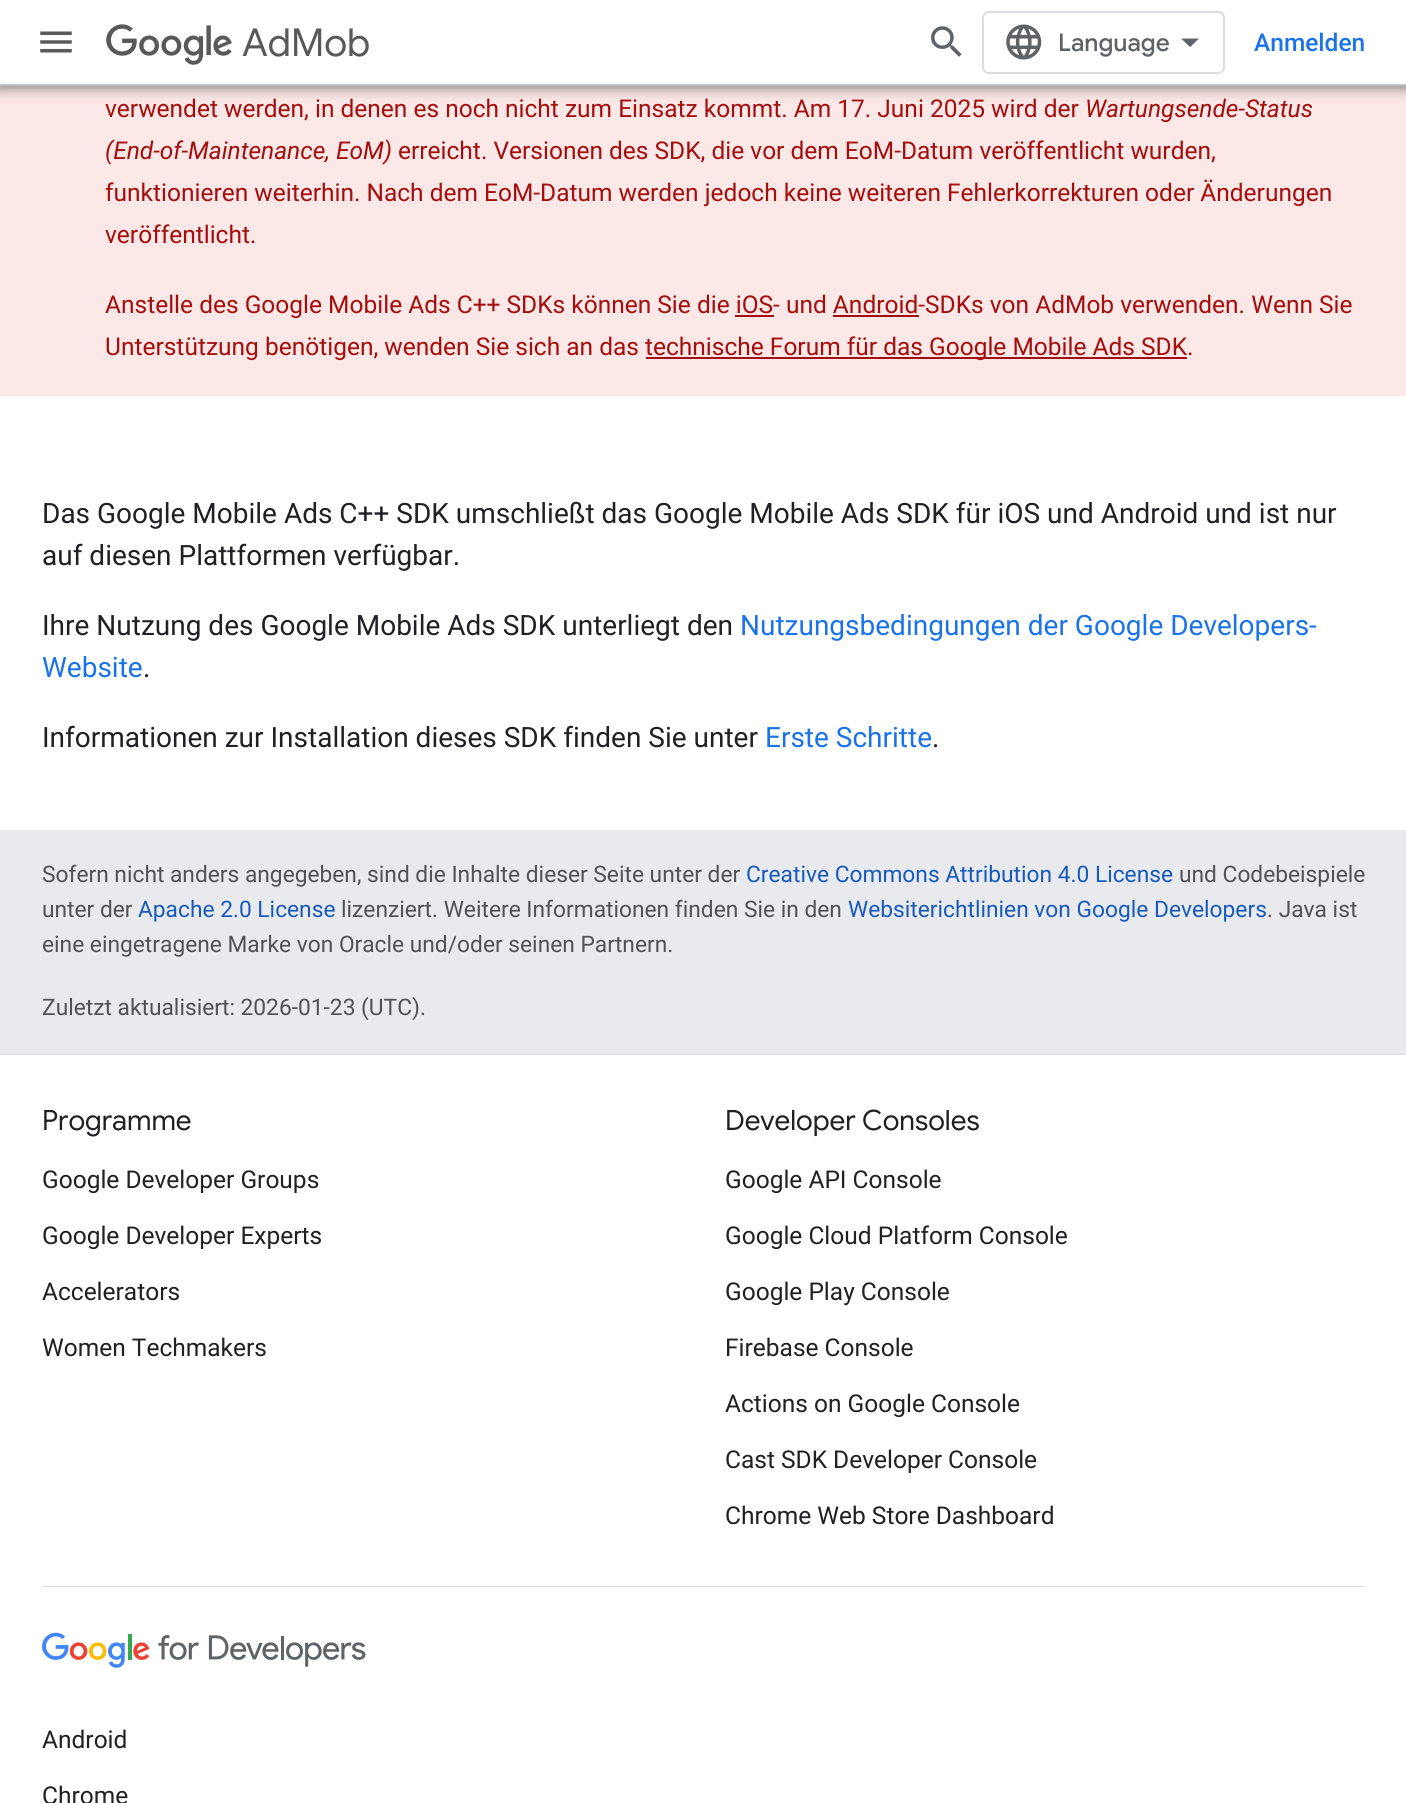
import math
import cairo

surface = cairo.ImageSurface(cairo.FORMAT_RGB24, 1406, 1803)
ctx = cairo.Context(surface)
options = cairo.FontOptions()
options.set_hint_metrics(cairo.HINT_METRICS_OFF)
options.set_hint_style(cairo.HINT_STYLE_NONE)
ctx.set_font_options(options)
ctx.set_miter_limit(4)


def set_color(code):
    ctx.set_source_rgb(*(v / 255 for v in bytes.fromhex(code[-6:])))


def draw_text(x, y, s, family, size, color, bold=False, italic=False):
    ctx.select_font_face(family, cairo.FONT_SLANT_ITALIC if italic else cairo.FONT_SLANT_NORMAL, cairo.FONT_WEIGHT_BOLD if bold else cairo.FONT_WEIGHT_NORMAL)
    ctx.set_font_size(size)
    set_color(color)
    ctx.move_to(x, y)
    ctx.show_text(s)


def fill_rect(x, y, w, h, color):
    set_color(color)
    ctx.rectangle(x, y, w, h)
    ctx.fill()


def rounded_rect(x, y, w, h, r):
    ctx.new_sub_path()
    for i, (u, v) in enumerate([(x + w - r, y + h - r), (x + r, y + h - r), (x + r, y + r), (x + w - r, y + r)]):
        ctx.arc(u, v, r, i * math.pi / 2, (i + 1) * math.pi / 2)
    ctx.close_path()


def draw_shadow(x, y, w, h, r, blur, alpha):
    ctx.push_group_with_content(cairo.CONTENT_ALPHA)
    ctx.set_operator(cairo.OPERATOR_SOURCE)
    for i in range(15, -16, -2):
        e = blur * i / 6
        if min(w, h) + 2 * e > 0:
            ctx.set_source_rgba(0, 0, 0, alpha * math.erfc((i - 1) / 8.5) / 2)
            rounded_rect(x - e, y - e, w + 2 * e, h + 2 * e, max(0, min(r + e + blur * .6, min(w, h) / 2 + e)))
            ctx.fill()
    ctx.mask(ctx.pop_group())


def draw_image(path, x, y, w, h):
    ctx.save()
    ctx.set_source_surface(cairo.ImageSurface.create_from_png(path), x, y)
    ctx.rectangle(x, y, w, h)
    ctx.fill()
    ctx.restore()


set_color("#e8eaed")
ctx.paint()
fill_rect(0, 86, 1406, 310, "#fce8e6")
set_color("#3c4043")
draw_shadow(-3, 0, 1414, 93, 0, 5, 0.15)
draw_shadow(0, 2, 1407, 86, 0, 2, 0.3)
draw_shadow(-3, 86, 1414, 7, 0, 5, 0.15)
fill_rect(0, 0, 1406, 84, "#ffffff")
fill_rect(0, 84, 1406, 2, "#bdc1c6")
draw_image("assets/img1.png", 40, 31, 32, 22)
draw_image("assets/img2.png", 106, 24, 126, 41)
draw_text(242, 56, "AdMob", "Google Sans", 38.5, "#595959")
draw_image("assets/img3.png", 931, 26, 31, 31)
rounded_rect(983, 12, 241, 61, 6)
set_color("#dadce0")
ctx.stroke()
draw_image("assets/img4.png", 1006, 24, 36, 36)
draw_text(1058, 51, "Language", "Google Sans Medium", 24.5, "#5f6368")
ctx.new_path()
ctx.move_to(1190, 47)
ctx.line_to(1181, 38.5)
ctx.line_to(1199, 38.5)
ctx.close_path()
ctx.fill()
draw_text(1254, 51, "Anmelden", "Roboto Medium", 24.5, "#1a73e8")
fill_rect(0, 396, 1406, 434, "#ffffff")
draw_text(105, 117, "verwendet werden, in denen es noch nicht zum Einsatz kommt. Am 17. Juni 2025 wird der", "Roboto", 24.5, "#a50e0e")
draw_text(1085, 117, "Wartungsende-Status", "Roboto", 24.5, "#a50e0e", italic=True)
draw_text(105, 159, "(End-of-Maintenance, EoM)", "Roboto", 24.5, "#a50e0e", italic=True)
draw_text(398, 159, "erreicht. Versionen des SDK, die vor dem EoM-Datum veröffentlicht wurden,", "Roboto", 24.5, "#a50e0e")
draw_text(105, 201, "funktionieren weiterhin. Nach dem EoM-Datum werden jedoch keine weiteren Fehlerkorrekturen oder Änderungen", "Roboto", 24.5, "#a50e0e")
draw_text(105, 243, "veröffentlicht.", "Roboto", 24.5, "#a50e0e")
draw_text(105, 313, "Anstelle des Google Mobile Ads C++ SDKs können Sie die iOS- und Android-SDKs von AdMob verwenden. Wenn Sie", "Roboto", 24.5, "#a50e0e")
fill_rect(735, 315, 39, 2, "#a50e0e")
fill_rect(833, 315, 86, 2, "#a50e0e")
draw_text(105, 355, "Unterstützung benötigen, wenden Sie sich an das", "Roboto", 24.5, "#a50e0e")
fill_rect(646, 357, 541, 2, "#a50e0e")
draw_text(645, 355, "technische Forum für das Google Mobile Ads SDK.", "Roboto", 24.5, "#a50e0e")
draw_text(42, 523, "Das Google Mobile Ads C++ SDK umschließt das Google Mobile Ads SDK für iOS und Android und ist nur", "Roboto", 28, "#202124")
draw_text(42, 565, "auf diesen Plattformen verfügbar.", "Roboto", 28, "#202124")
draw_text(42, 635, "Ihre Nutzung des Google Mobile Ads SDK unterliegt den", "Roboto", 28, "#202124")
draw_text(740, 635, "Nutzungsbedingungen der Google Developers-", "Roboto", 28, "#1a73e8")
draw_text(42, 677, "Website", "Roboto", 28, "#1a73e8")
draw_text(143, 677, ".", "Roboto", 28, "#202124")
draw_text(42, 747, "Informationen zur Installation dieses SDK finden Sie unter", "Roboto", 28, "#202124")
draw_text(765, 747, "Erste Schritte", "Roboto", 28, "#1a73e8")
draw_text(932, 747, ".", "Roboto", 28, "#202124")
draw_text(42, 882, "Sofern nicht anders angegeben, sind die Inhalte dieser Seite unter der", "Roboto", 22.75, "#515253")
draw_text(746, 882, "Creative Commons Attribution 4.0 License", "Roboto", 22.75, "#185abc")
draw_text(1179, 882, "und Codebeispiele", "Roboto", 22.75, "#515253")
draw_text(42, 917, "unter der", "Roboto", 22.75, "#515253")
draw_text(138, 917, "Apache 2.0 License", "Roboto", 22.75, "#185abc")
draw_text(341, 917, "lizenziert. Weitere Informationen finden Sie in den", "Roboto", 22.75, "#515253")
draw_text(848, 917, "Websiterichtlinien von Google Developers", "Roboto", 22.75, "#185abc")
draw_text(1267, 917, ". Java ist", "Roboto", 22.75, "#515253")
draw_text(42, 952, "eine eingetragene Marke von Oracle und/oder seinen Partnern.", "Roboto", 22.75, "#515253")
draw_text(42, 1015, "Zuletzt aktualisiert: 2026-01-23 (UTC).", "Roboto", 22.75, "#515253")
fill_rect(0, 1054, 1406, 1, "#dadce0")
fill_rect(0, 1055, 1406, 748, "#ffffff")
fill_rect(42, 1586, 1323, 1, "#dadce0")
draw_text(42, 1130, "Programme", "Google Sans", 28, "#202124")
draw_text(42, 1188, "Google Developer Groups", "Roboto", 24.5, "#202124")
draw_text(42, 1244, "Google Developer Experts", "Roboto", 24.5, "#202124")
draw_text(42, 1300, "Accelerators", "Roboto", 24.5, "#202124")
draw_text(42, 1356, "Women Techmakers", "Roboto", 24.5, "#202124")
draw_text(725, 1130, "Developer Consoles", "Google Sans", 28, "#202124")
draw_text(725, 1188, "Google API Console", "Roboto", 24.5, "#202124")
draw_text(725, 1244, "Google Cloud Platform Console", "Roboto", 24.5, "#202124")
draw_text(725, 1300, "Google Play Console", "Roboto", 24.5, "#202124")
draw_text(725, 1356, "Firebase Console", "Roboto", 24.5, "#202124")
draw_text(725, 1412, "Actions on Google Console", "Roboto", 24.5, "#202124")
draw_text(725, 1468, "Cast SDK Developer Console", "Roboto", 24.5, "#202124")
draw_text(725, 1524, "Chrome Web Store Dashboard", "Roboto", 24.5, "#202124")
draw_image("assets/img5.png", 42, 1632, 324, 36)
draw_text(42, 1748, "Android", "Roboto", 24.5, "#202124")
draw_text(42, 1804, "Chrome", "Roboto", 24.5, "#202124")
surface.write_to_png("output.png")
